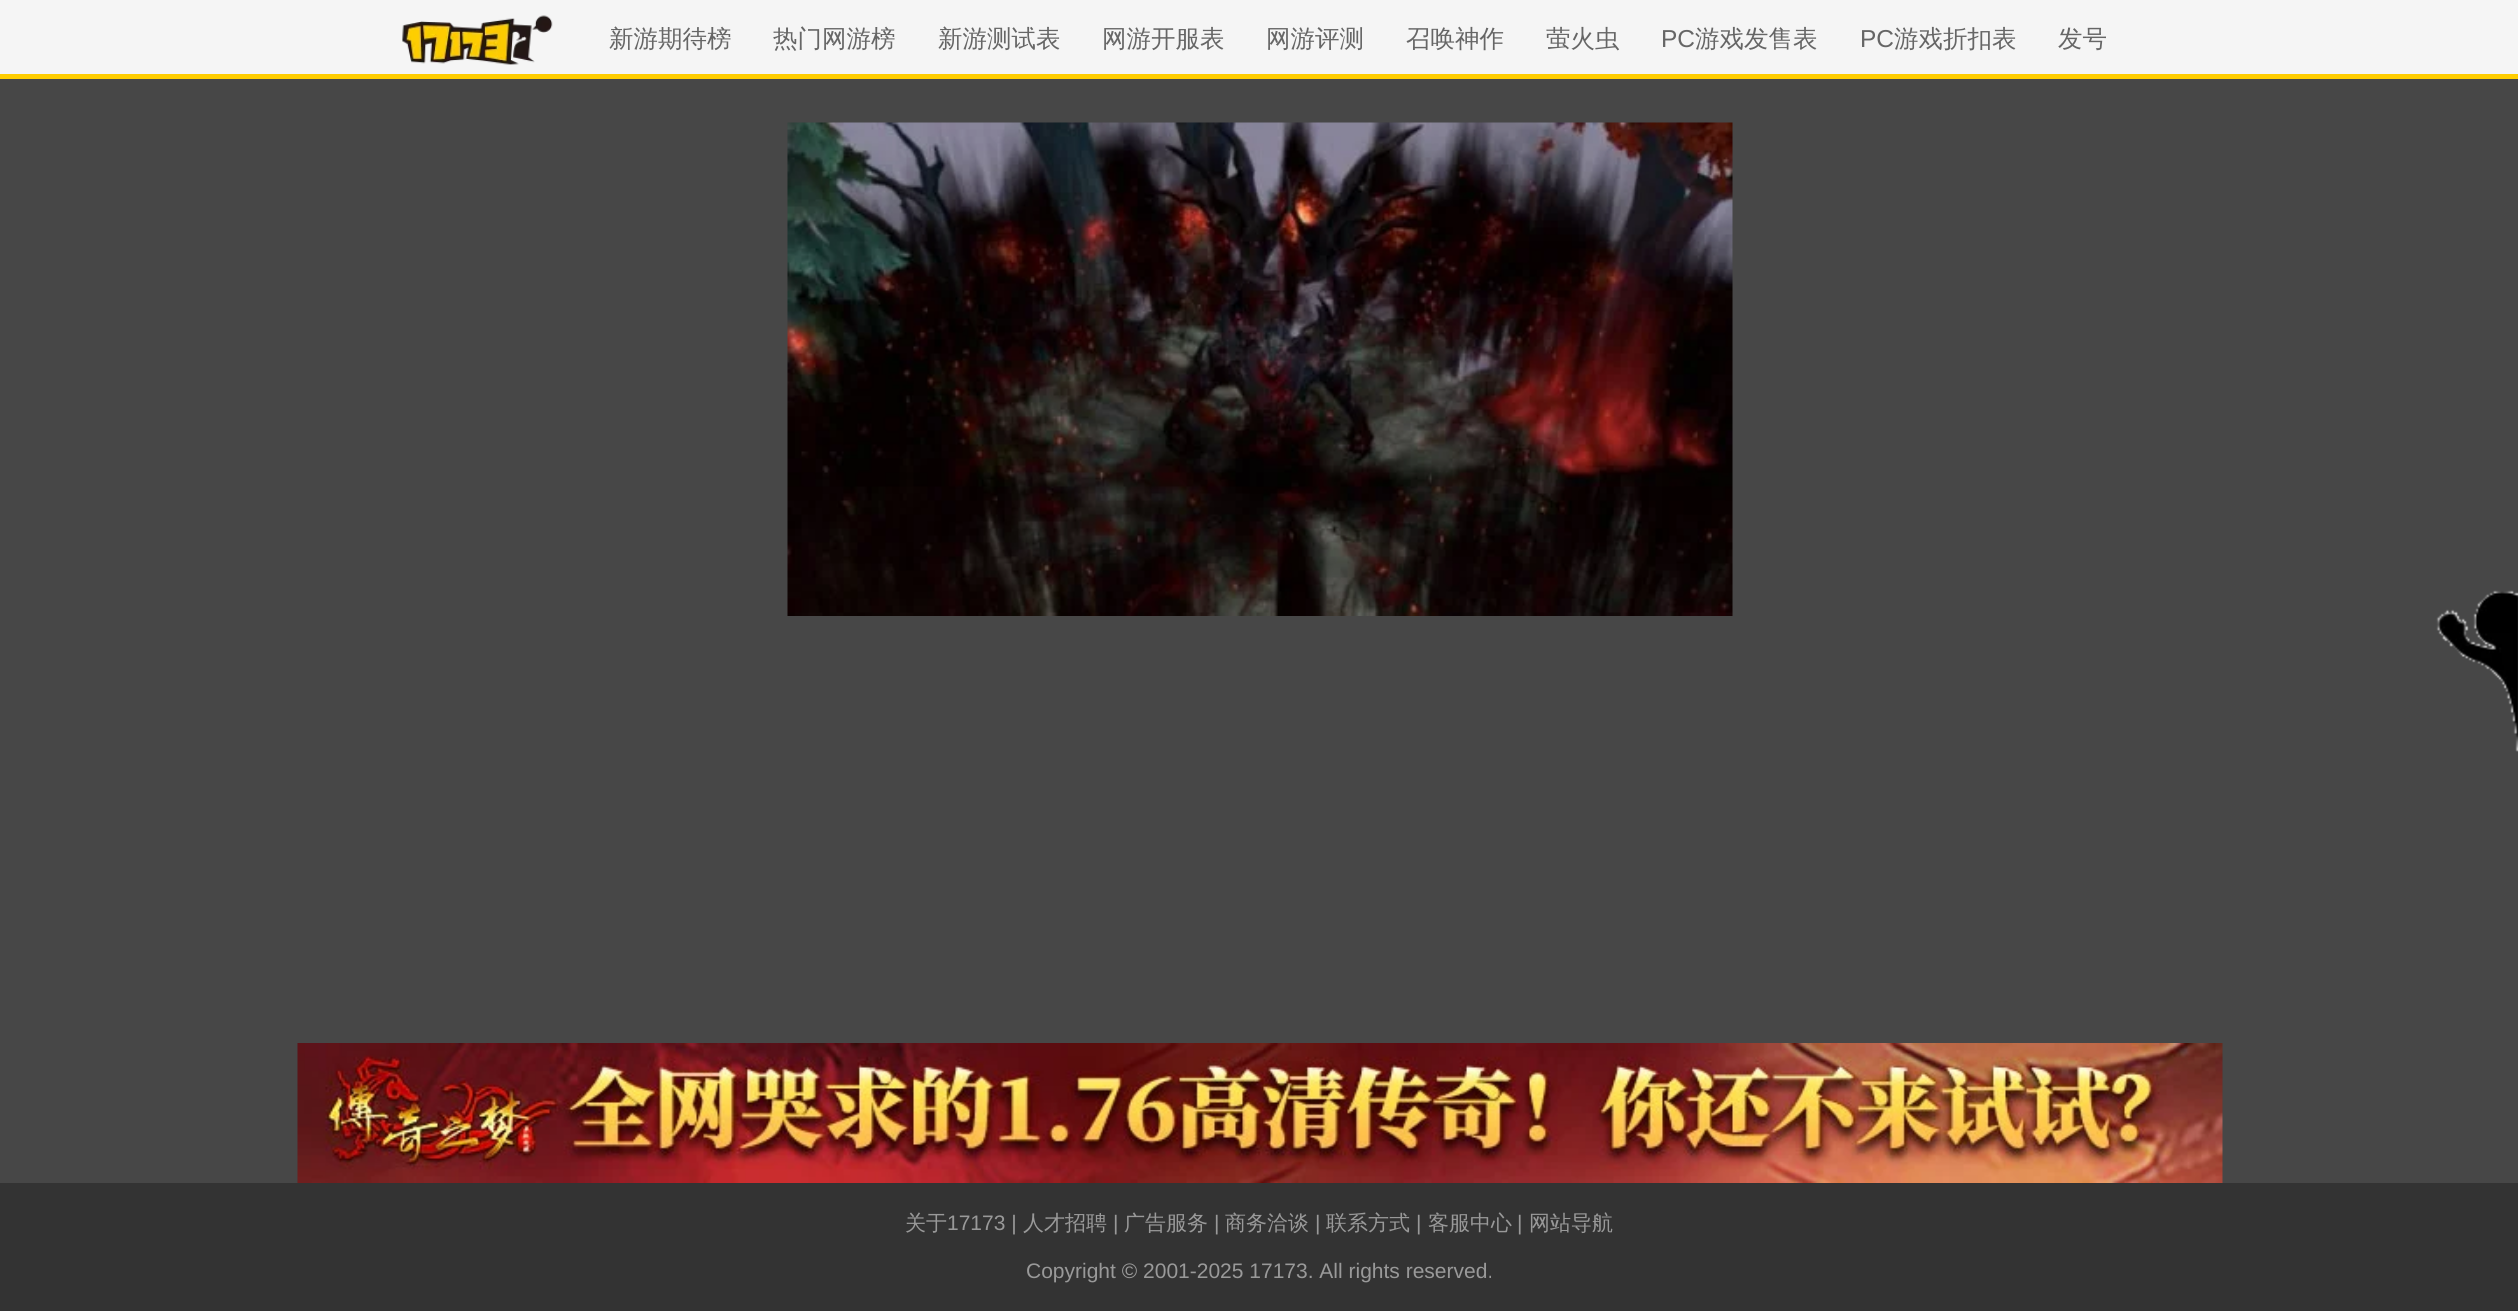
import math
import cairo

surface = cairo.ImageSurface(cairo.FORMAT_RGB24, 2518, 1311)
ctx = cairo.Context(surface)
options = cairo.FontOptions()
options.set_hint_metrics(cairo.HINT_METRICS_OFF)
options.set_hint_style(cairo.HINT_STYLE_NONE)
ctx.set_font_options(options)
ctx.set_miter_limit(4)


def set_color(code):
    ctx.set_source_rgb(*(v / 255 for v in bytes.fromhex(code[-6:])))


def draw_text(x, y, s, family, size, color, bold=False, italic=False):
    ctx.select_font_face(family, cairo.FONT_SLANT_ITALIC if italic else cairo.FONT_SLANT_NORMAL, cairo.FONT_WEIGHT_BOLD if bold else cairo.FONT_WEIGHT_NORMAL)
    ctx.set_font_size(size)
    set_color(color)
    ctx.move_to(x, y)
    ctx.show_text(s)


def fill_rect(x, y, w, h, color):
    set_color(color)
    ctx.rectangle(x, y, w, h)
    ctx.fill()


def draw_image(path, x, y, w, h):
    ctx.save()
    ctx.set_source_surface(cairo.ImageSurface.create_from_png(path), x, y)
    ctx.rectangle(x, y, w, h)
    ctx.fill()
    ctx.restore()


set_color("#474747")
ctx.paint()
fill_rect(0, 0, 2518, 74, "#f5f5f5")
fill_rect(0, 74, 2518, 5, "#ffcd00")
draw_image("assets/img1.png", 402, 15, 151, 50)
draw_text(609, 47, "新游期待榜", "WenQuanYi Zen Hei Medium", 24.5, "#666666")
draw_text(773, 47, "热门网游榜", "WenQuanYi Zen Hei Medium", 24.5, "#666666")
draw_text(938, 47, "新游测试表", "WenQuanYi Zen Hei Medium", 24.5, "#666666")
draw_text(1102, 47, "网游开服表", "WenQuanYi Zen Hei Medium", 24.5, "#666666")
draw_text(1266, 47, "网游评测", "WenQuanYi Zen Hei Medium", 24.5, "#666666")
draw_text(1406, 47, "召唤神作", "WenQuanYi Zen Hei Medium", 24.5, "#666666")
draw_text(1546, 47, "萤火虫", "WenQuanYi Zen Hei Medium", 24.5, "#666666")
draw_text(1661, 47, "PC", "Liberation Sans", 24.5, "#666666")
draw_text(1695, 47, "游戏发售表", "WenQuanYi Zen Hei Medium", 24.5, "#666666")
draw_text(1860, 47, "PC", "Liberation Sans", 24.5, "#666666")
draw_text(1894, 47, "游戏折扣表", "WenQuanYi Zen Hei Medium", 24.5, "#666666")
draw_text(2058, 47, "发号", "WenQuanYi Zen Hei Medium", 24.5, "#666666")
draw_image("assets/img2.png", 787, 122, 946, 494)
draw_image("assets/img3.png", 297, 1043, 1926, 140)
draw_image("assets/img4.png", 2436, 590, 82, 162)
fill_rect(0, 1183, 2518, 128, "#333333")
draw_text(905, 1230, "关于", "WenQuanYi Zen Hei Medium", 21, "#999999")
draw_text(947, 1230, "17173 |", "Liberation Sans", 21, "#999999")
draw_text(1023, 1230, "人才招聘", "WenQuanYi Zen Hei Medium", 21, "#999999")
draw_text(1113, 1230, "|", "Liberation Sans", 21, "#999999")
draw_text(1124, 1230, "广告服务", "WenQuanYi Zen Hei Medium", 21, "#999999")
draw_text(1214, 1230, "|", "Liberation Sans", 21, "#999999")
draw_text(1225, 1230, "商务洽谈", "WenQuanYi Zen Hei Medium", 21, "#999999")
draw_text(1315, 1230, "|", "Liberation Sans", 21, "#999999")
draw_text(1326, 1230, "联系方式", "WenQuanYi Zen Hei Medium", 21, "#999999")
draw_text(1416, 1230, "|", "Liberation Sans", 21, "#999999")
draw_text(1428, 1230, "客服中心", "WenQuanYi Zen Hei Medium", 21, "#999999")
draw_text(1517, 1230, "|", "Liberation Sans", 21, "#999999")
draw_text(1529, 1230, "网站导航", "WenQuanYi Zen Hei Medium", 21, "#999999")
draw_text(1026, 1278, "Copyright © 2001-2025 17173. All rights reserved.", "Liberation Sans", 21, "#999999")
surface.write_to_png("output.png")
